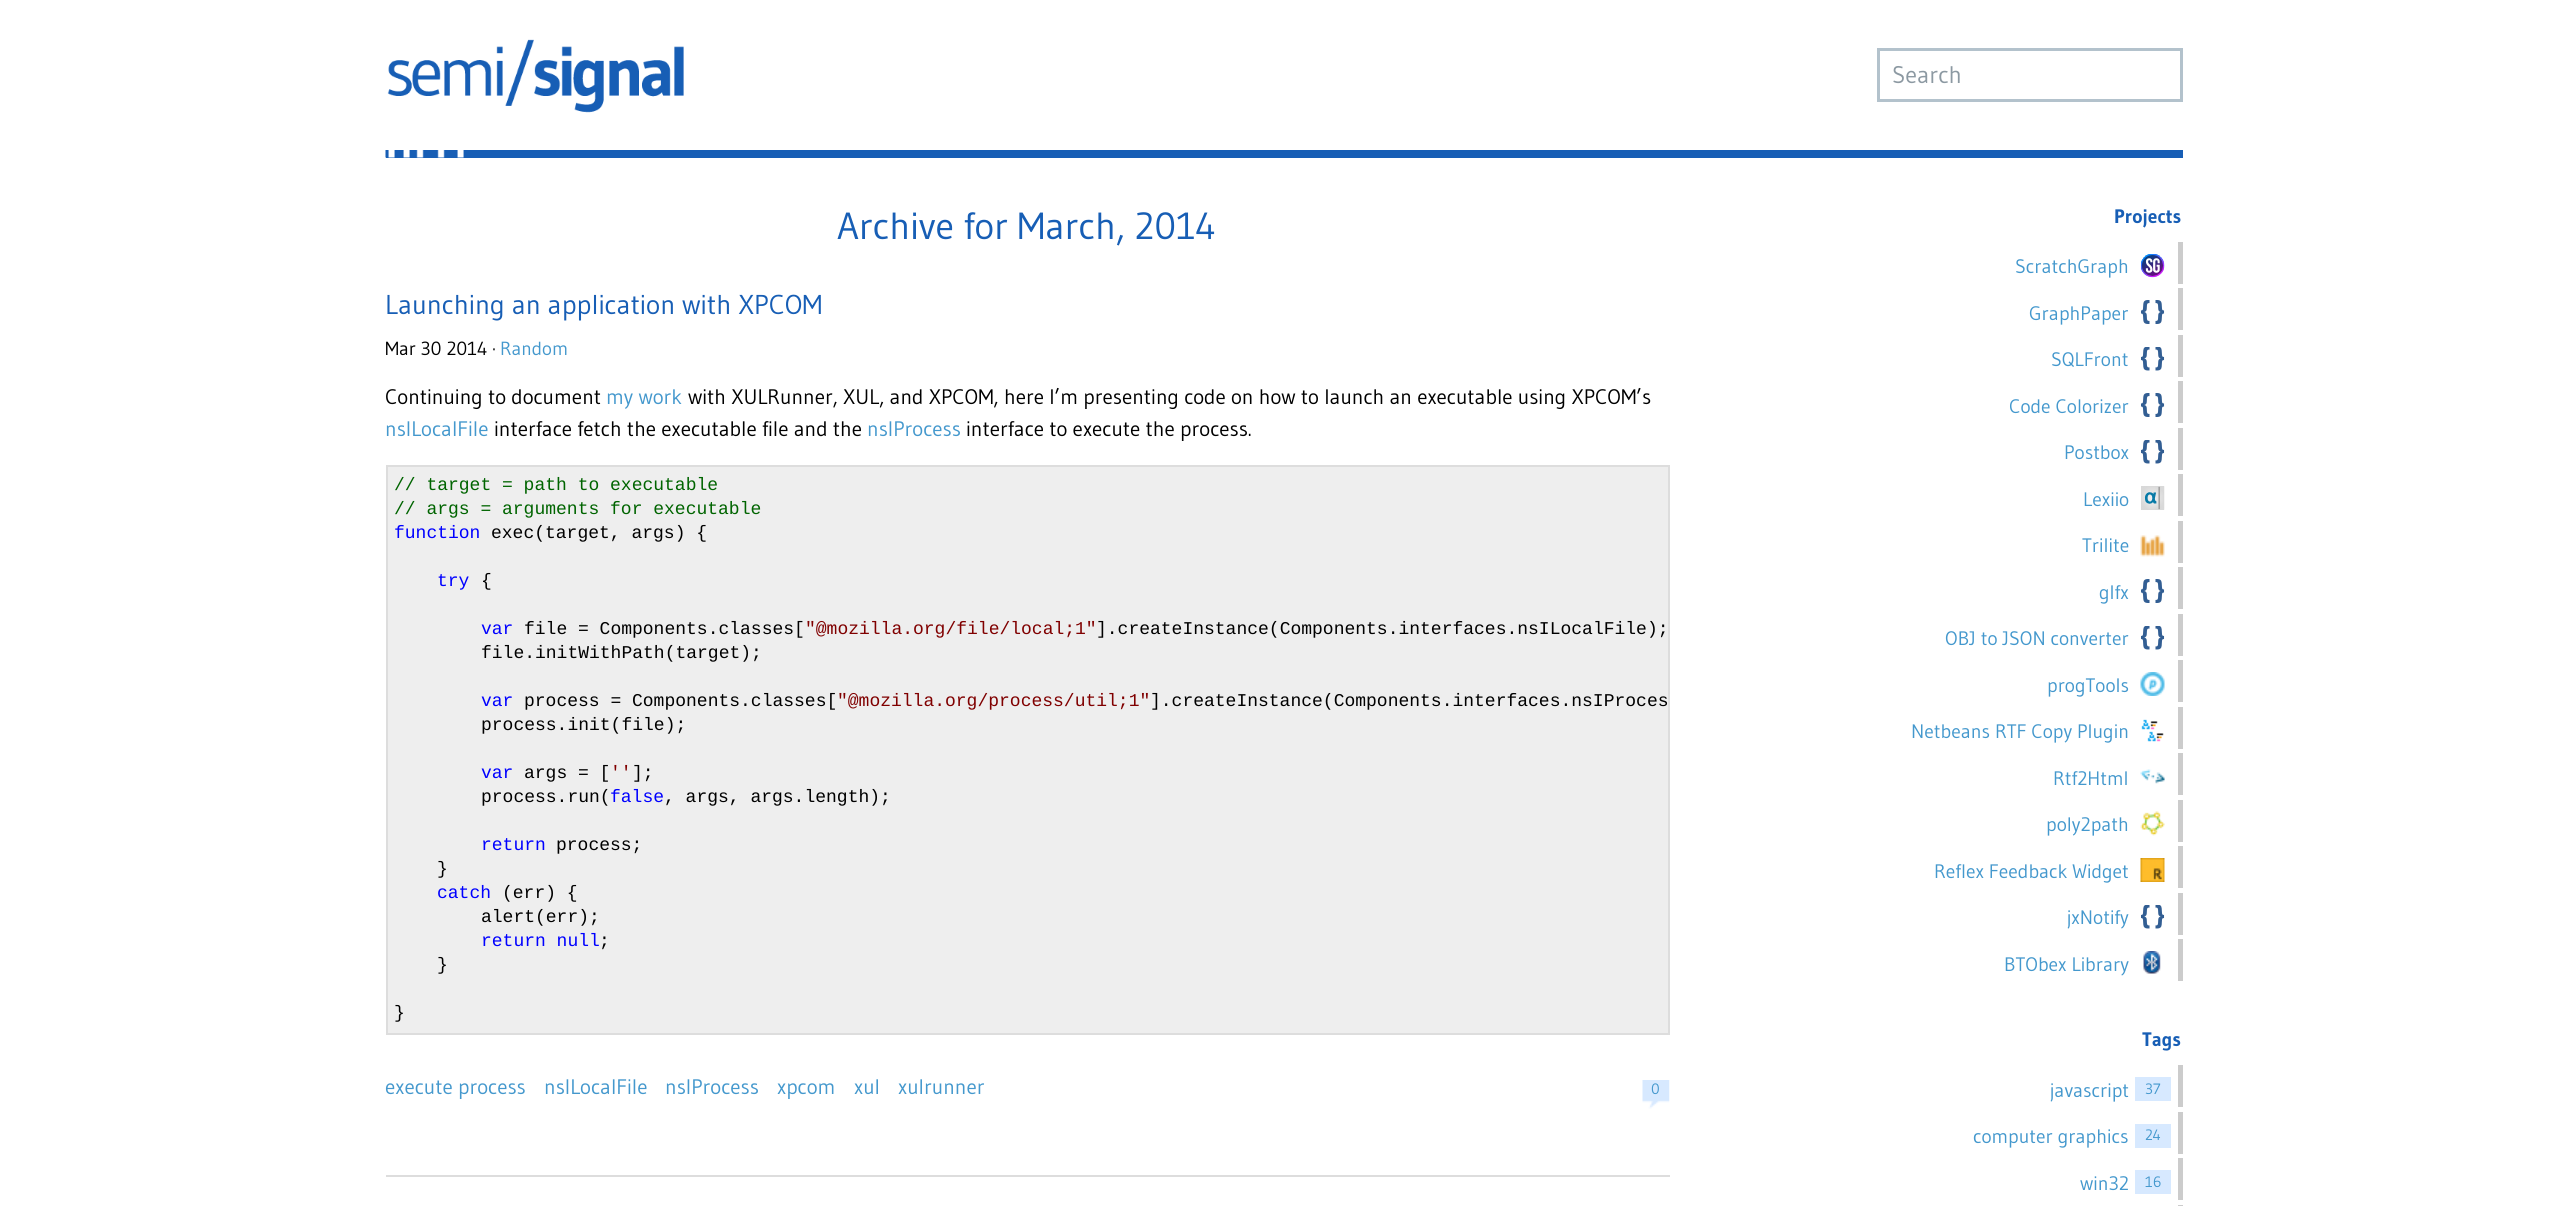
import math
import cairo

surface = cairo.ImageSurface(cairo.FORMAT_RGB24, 2567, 1206)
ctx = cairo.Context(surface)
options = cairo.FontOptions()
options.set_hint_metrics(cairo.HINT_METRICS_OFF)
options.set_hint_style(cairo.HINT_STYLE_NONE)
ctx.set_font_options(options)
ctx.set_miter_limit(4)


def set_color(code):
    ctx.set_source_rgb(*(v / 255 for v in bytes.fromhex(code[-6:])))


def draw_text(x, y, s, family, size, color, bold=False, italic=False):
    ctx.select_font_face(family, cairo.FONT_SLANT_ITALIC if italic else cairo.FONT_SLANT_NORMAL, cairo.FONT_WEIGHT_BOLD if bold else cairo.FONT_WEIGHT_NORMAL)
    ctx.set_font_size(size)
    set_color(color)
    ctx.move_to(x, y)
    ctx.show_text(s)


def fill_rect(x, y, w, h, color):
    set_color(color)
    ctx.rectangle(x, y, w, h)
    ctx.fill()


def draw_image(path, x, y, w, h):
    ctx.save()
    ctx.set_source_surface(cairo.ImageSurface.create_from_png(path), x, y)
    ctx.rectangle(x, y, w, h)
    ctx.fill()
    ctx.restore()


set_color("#ffffff")
ctx.paint()
fill_rect(386, 150, 1797, 8, "#175eb5")
draw_image("assets/img1.png", 387, 39, 297, 74)
ctx.rectangle(1878.5, 49.5, 303, 51)
set_color("#b3c2cc")
ctx.set_line_width(3)
ctx.stroke()
draw_text(1892, 83, "Search", "Gudea", 24, "#8c99a2")
draw_image("assets/img2.png", 385, 150, 79, 8)
draw_text(837, 239, "Archive for March, 2014", "Gudea", 37.75, "#175eb5")
fill_rect(386, 1175, 1284, 2, "#dddddd")
draw_text(385, 314, "Launching an application with XPCOM", "Gudea", 27.25, "#175eb5")
draw_text(385, 355, "Mar 30 2014 ·", "Gudea", 19, "#000000")
draw_text(500, 355, "Random", "Gudea", 19, "#4498cd")
draw_text(385, 404, "Continuing to document", "Gudea", 21, "#000000")
draw_text(606, 404, "my work", "Gudea", 21, "#4498cd")
draw_text(688, 404, "with XULRunner, XUL, and XPCOM, here I’m presenting code on how to launch an executable using XPCOM’s", "Gudea", 21, "#000000")
draw_text(385, 436, "nsILocalFile", "Gudea", 21, "#4498cd")
draw_text(494, 436, "interface fetch the executable file and the", "Gudea", 21, "#000000")
draw_text(867, 436, "nsIProcess", "Gudea", 21, "#4498cd")
draw_text(966, 436, "interface to execute the process.", "Gudea", 21, "#000000")
set_color("#eeeeee")
ctx.rectangle(387, 466, 1282, 568)
ctx.fill_preserve()
set_color("#dddddd")
ctx.set_line_width(2)
ctx.stroke()
draw_text(394, 490, "// target = path to executable", "Liberation Mono", 18, "#006400")
draw_text(394, 514, "// args = arguments for executable", "Liberation Mono", 18, "#006400")
draw_text(394, 538, "function", "Liberation Mono", 18, "#0000ff")
draw_text(491, 538, "exec(target, args) {", "Liberation Mono", 18, "#000000")
draw_text(437, 586, "try", "Liberation Mono", 18, "#0000ff")
draw_text(481, 586, "{", "Liberation Mono", 18, "#000000")
draw_text(481, 634, "var", "Liberation Mono", 18, "#0000ff")
draw_text(524, 634, "file = Components.classes[", "Liberation Mono", 18, "#000000")
draw_text(805, 634, "\"@mozilla.org/file/local;1\"", "Liberation Mono", 18, "#800000")
draw_text(1096, 634, "].createInstance(Components.interfaces.nsILocalFile);", "Liberation Mono", 18, "#000000")
draw_text(481, 658, "file.initWithPath(target);", "Liberation Mono", 18, "#000000")
draw_text(481, 706, "var", "Liberation Mono", 18, "#0000ff")
draw_text(524, 706, "process = Components.classes[", "Liberation Mono", 18, "#000000")
draw_text(837, 706, "\"@mozilla.org/process/util;1\"", "Liberation Mono", 18, "#800000")
draw_text(1150, 706, "].createInstance(Components.interfaces.nsIProces", "Liberation Mono", 18, "#000000")
draw_text(481, 730, "process.init(file);", "Liberation Mono", 18, "#000000")
draw_text(481, 778, "var", "Liberation Mono", 18, "#0000ff")
draw_text(524, 778, "args = [", "Liberation Mono", 18, "#000000")
draw_text(610, 778, "''", "Liberation Mono", 18, "#800000")
draw_text(632, 778, "];", "Liberation Mono", 18, "#000000")
draw_text(481, 802, "process.run(", "Liberation Mono", 18, "#000000")
draw_text(610, 802, "false", "Liberation Mono", 18, "#0000ff")
draw_text(664, 802, ", args, args.length);", "Liberation Mono", 18, "#000000")
draw_text(481, 850, "return", "Liberation Mono", 18, "#0000ff")
draw_text(556, 850, "process;", "Liberation Mono", 18, "#000000")
draw_text(437, 874, "}", "Liberation Mono", 18, "#000000")
draw_text(437, 898, "catch", "Liberation Mono", 18, "#0000ff")
draw_text(502, 898, "(err) {", "Liberation Mono", 18, "#000000")
draw_text(481, 922, "alert(err);", "Liberation Mono", 18, "#000000")
draw_text(481, 946, "return null", "Liberation Mono", 18, "#0000ff")
draw_text(599, 946, ";", "Liberation Mono", 18, "#000000")
draw_text(437, 970, "}", "Liberation Mono", 18, "#000000")
draw_text(394, 1018, "}", "Liberation Mono", 18, "#000000")
draw_text(385, 1094, "execute process", "Gudea", 21, "#4498cd")
draw_text(544, 1094, "nsILocalFile", "Gudea", 21, "#4498cd")
draw_text(665, 1094, "nsIProcess", "Gudea", 21, "#4498cd")
draw_text(777, 1094, "xpcom", "Gudea", 21, "#4498cd")
draw_text(854, 1094, "xul", "Gudea", 21, "#4498cd")
draw_text(898, 1094, "xulrunner", "Gudea", 21, "#4498cd")
draw_image("assets/img3.png", 1642, 1080, 28, 29)
draw_text(1651, 1094, "0", "Gudea", 15, "#4498cd")
draw_text(2114, 223, "Projects", "Gudea", 19.5, "#175eb5", bold=True)
fill_rect(2178, 242, 5, 42, "#cccccc")
draw_text(2015, 273, "ScratchGraph", "Gudea", 19.5, "#4498cd")
draw_image("assets/img4.png", 2141, 254, 24, 24)
fill_rect(2178, 288, 5, 42, "#cccccc")
draw_text(2029, 320, "GraphPaper", "Gudea", 19.5, "#4498cd")
draw_image("assets/img5.png", 2141, 300, 24, 24)
fill_rect(2178, 335, 5, 42, "#cccccc")
draw_text(2051, 366, "SQLFront", "Gudea", 19.5, "#4498cd")
draw_image("assets/img6.png", 2141, 347, 24, 24)
fill_rect(2178, 381, 5, 42, "#cccccc")
draw_text(2009, 413, "Code Colorizer", "Gudea", 19.5, "#4498cd")
draw_image("assets/img5.png", 2141, 393, 24, 24)
fill_rect(2178, 428, 5, 42, "#cccccc")
draw_text(2064, 459, "Postbox", "Gudea", 19.5, "#4498cd")
draw_image("assets/img6.png", 2141, 440, 24, 24)
fill_rect(2178, 474, 5, 42, "#cccccc")
draw_text(2083, 506, "Lexiio", "Gudea", 19.5, "#4498cd")
draw_image("assets/img7.png", 2141, 486, 24, 24)
fill_rect(2178, 521, 5, 42, "#cccccc")
draw_text(2082, 552, "Trilite", "Gudea", 19.5, "#4498cd")
draw_image("assets/img8.png", 2140, 535, 25, 22)
fill_rect(2178, 567, 5, 42, "#cccccc")
draw_text(2099, 599, "glfx", "Gudea", 19.5, "#4498cd")
draw_image("assets/img5.png", 2141, 579, 24, 24)
fill_rect(2178, 614, 5, 42, "#cccccc")
draw_text(1945, 645, "OBJ to JSON converter", "Gudea", 19.5, "#4498cd")
draw_image("assets/img6.png", 2141, 626, 24, 24)
fill_rect(2178, 660, 5, 42, "#cccccc")
draw_text(2047, 692, "progTools", "Gudea", 19.5, "#4498cd")
draw_image("assets/img9.png", 2140, 672, 25, 24)
fill_rect(2178, 707, 5, 42, "#cccccc")
draw_text(1911, 738, "Netbeans RTF Copy Plugin", "Gudea", 19.5, "#4498cd")
draw_image("assets/img10.png", 2141, 719, 23, 23)
fill_rect(2178, 753, 5, 42, "#cccccc")
draw_text(2053, 785, "Rtf2Html", "Gudea", 19.5, "#4498cd")
draw_image("assets/img11.png", 2140, 769, 25, 15)
fill_rect(2178, 800, 5, 42, "#cccccc")
draw_text(2046, 831, "poly2path", "Gudea", 19.5, "#4498cd")
draw_image("assets/img12.png", 2140, 811, 25, 25)
fill_rect(2178, 846, 5, 42, "#cccccc")
draw_text(1934, 878, "Reflex Feedback Widget", "Gudea", 19.5, "#4498cd")
draw_image("assets/img13.png", 2140, 858, 25, 24)
fill_rect(2178, 893, 5, 42, "#cccccc")
draw_text(2067, 924, "jxNotify", "Gudea", 19.5, "#4498cd")
draw_image("assets/img6.png", 2141, 905, 24, 24)
fill_rect(2178, 939, 5, 42, "#cccccc")
draw_text(2004, 971, "BTObex Library", "Gudea", 19.5, "#4498cd")
draw_image("assets/img14.png", 2143, 951, 18, 23)
draw_text(2142, 1046, "Tags", "Gudea", 19.5, "#175eb5", bold=True)
fill_rect(2178, 1065, 5, 42, "#cccccc")
draw_text(2050, 1097, "javascript", "Gudea", 19.5, "#4498cd")
fill_rect(2135, 1077, 36, 24, "#d7e9ff")
draw_text(2145, 1094, "37", "Gudea", 15, "#4498cd")
fill_rect(2178, 1112, 5, 42, "#cccccc")
draw_text(1973, 1143, "computer graphics", "Gudea", 19.5, "#4498cd")
fill_rect(2135, 1124, 36, 24, "#d7e9ff")
draw_text(2145, 1140, "24", "Gudea", 15, "#4498cd")
fill_rect(2178, 1158, 5, 42, "#cccccc")
draw_text(2080, 1190, "win32", "Gudea", 19.5, "#4498cd")
fill_rect(2135, 1170, 36, 24, "#d7e9ff")
draw_text(2145, 1187, "16", "Gudea", 15, "#4498cd")
fill_rect(2178, 1205, 5, 1, "#cccccc")
surface.write_to_png("output.png")
